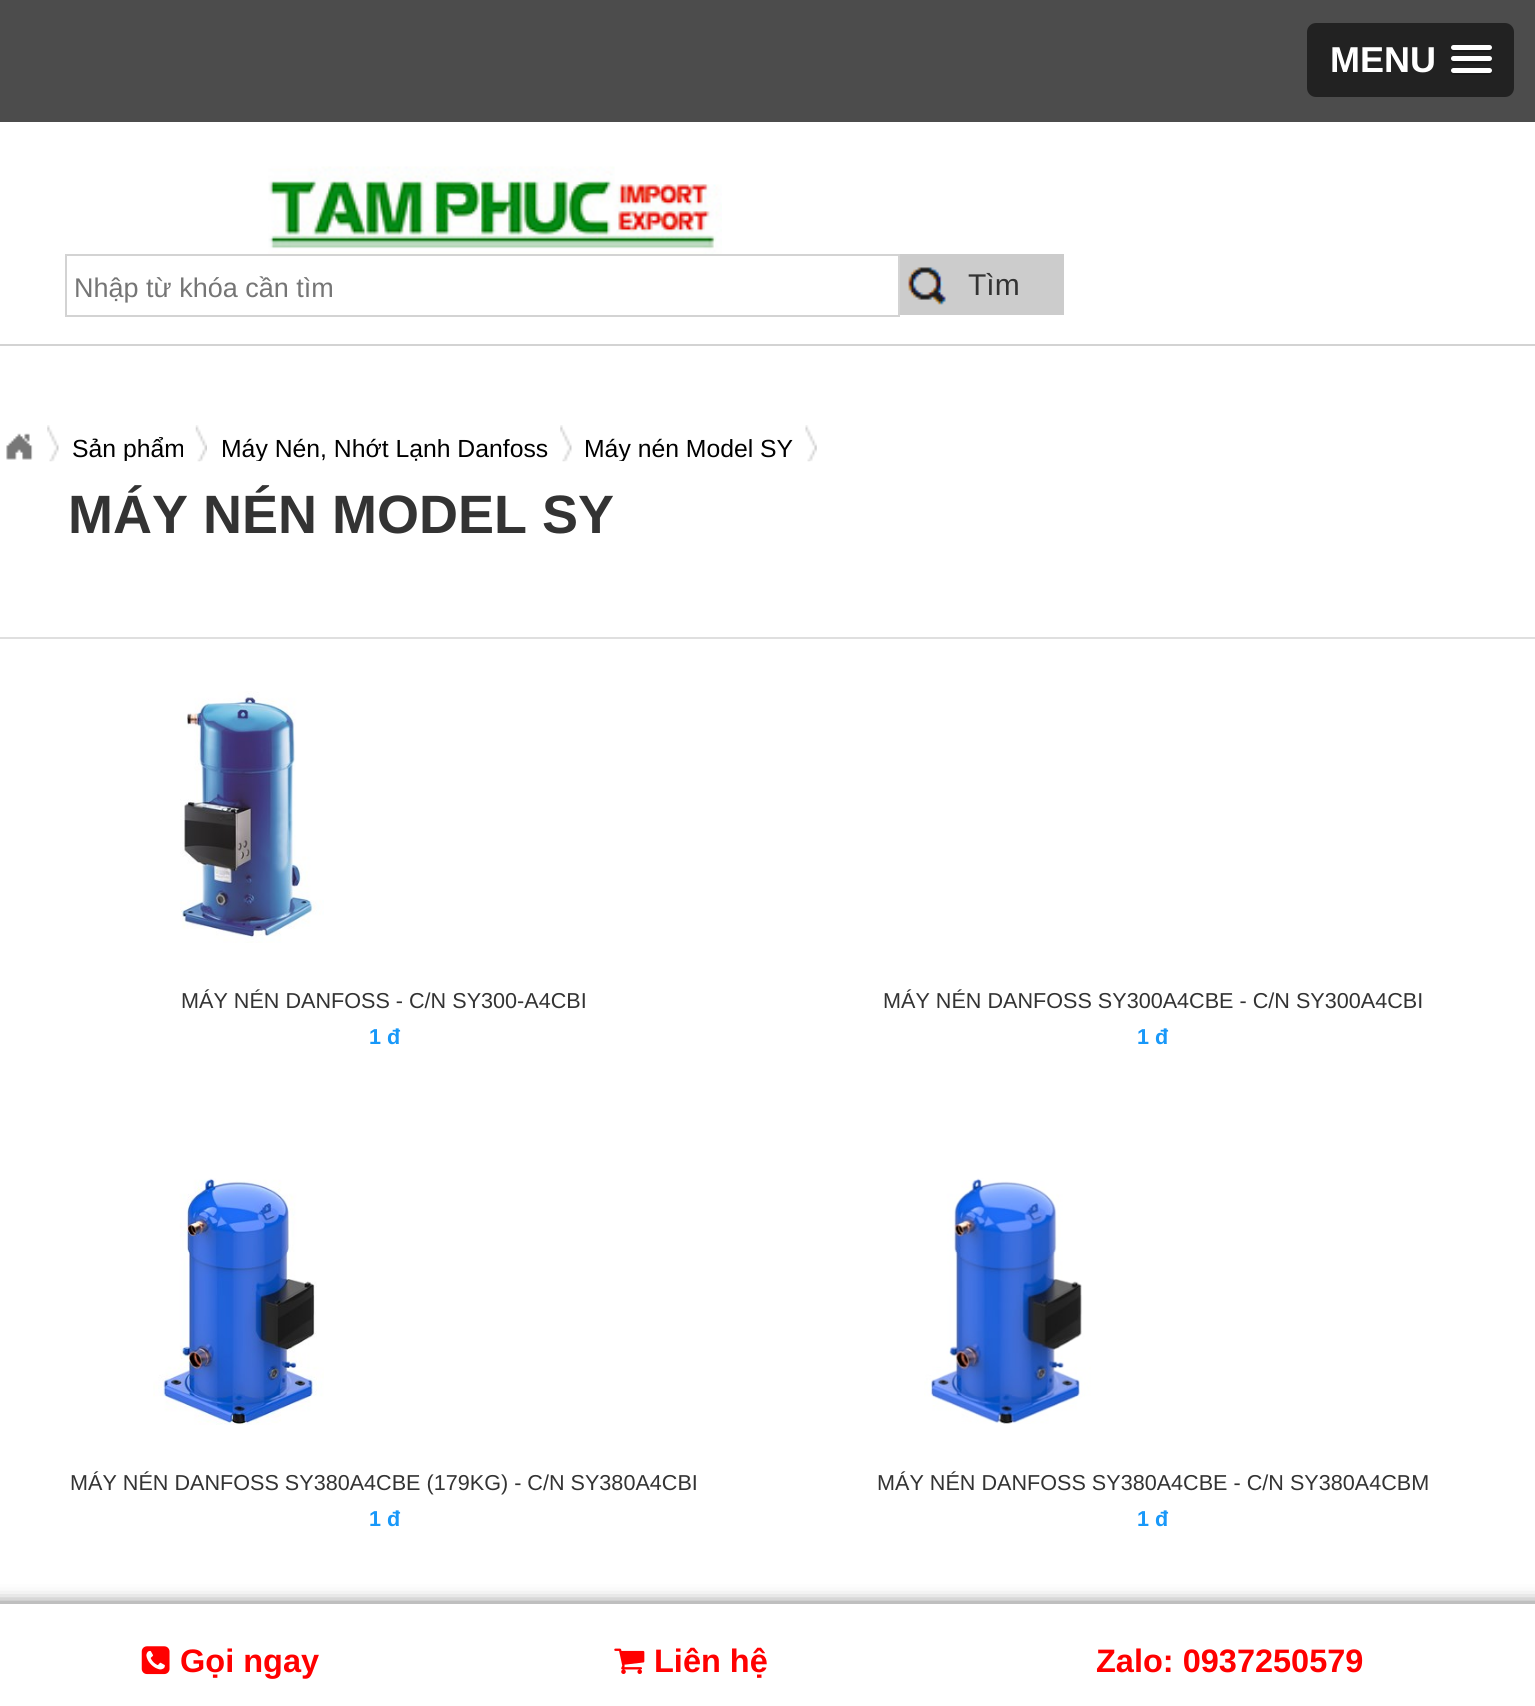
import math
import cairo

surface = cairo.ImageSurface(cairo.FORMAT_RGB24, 1535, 1706)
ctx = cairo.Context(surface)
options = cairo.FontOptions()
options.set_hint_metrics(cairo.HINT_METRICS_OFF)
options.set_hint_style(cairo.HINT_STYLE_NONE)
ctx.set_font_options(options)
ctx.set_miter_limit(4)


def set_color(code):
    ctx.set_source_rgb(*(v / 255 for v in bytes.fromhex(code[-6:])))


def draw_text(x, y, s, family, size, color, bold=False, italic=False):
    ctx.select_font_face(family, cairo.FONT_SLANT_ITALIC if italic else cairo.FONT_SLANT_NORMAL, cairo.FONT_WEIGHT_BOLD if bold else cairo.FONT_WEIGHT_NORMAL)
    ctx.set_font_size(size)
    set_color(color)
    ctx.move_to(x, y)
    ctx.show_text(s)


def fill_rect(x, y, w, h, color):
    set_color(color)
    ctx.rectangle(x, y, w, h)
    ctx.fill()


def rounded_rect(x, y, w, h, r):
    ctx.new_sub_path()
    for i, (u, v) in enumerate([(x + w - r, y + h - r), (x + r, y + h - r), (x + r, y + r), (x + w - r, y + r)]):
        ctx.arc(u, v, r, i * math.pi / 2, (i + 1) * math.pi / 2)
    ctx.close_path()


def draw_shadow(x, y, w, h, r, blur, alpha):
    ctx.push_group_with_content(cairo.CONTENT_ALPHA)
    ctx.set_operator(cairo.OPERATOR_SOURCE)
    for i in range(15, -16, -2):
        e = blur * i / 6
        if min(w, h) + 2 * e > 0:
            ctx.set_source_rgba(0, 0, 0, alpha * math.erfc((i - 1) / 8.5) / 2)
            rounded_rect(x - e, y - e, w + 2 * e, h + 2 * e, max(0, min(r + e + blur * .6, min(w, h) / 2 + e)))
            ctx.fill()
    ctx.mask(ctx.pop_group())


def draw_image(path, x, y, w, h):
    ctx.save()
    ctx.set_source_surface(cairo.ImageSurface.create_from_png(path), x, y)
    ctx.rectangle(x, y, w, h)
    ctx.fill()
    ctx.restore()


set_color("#ffffff")
ctx.paint()
fill_rect(0, 0, 1535, 122, "#4c4c4c")
set_color("#222222")
rounded_rect(1307, 23, 207, 74, 9)
ctx.fill()
draw_text(1330, 72, "MENU", "Liberation Sans", 36, "#ffffff", bold=True)
set_color("#1a1a1a")
ctx.new_path()
ctx.move_to(1451, 48)
ctx.curve_to(1448, 53, 1459, 52, 1460, 52)
ctx.line_to(1484, 52)
ctx.curve_to(1484, 52, 1495, 53, 1492, 48)
ctx.curve_to(1491, 49, 1490, 50, 1490, 50)
ctx.line_to(1454, 50)
ctx.curve_to(1453, 50, 1452, 49, 1451, 48)
ctx.close_path()
ctx.fill()
set_color("#ffffff")
rounded_rect(1451, 45, 41, 5, 2.5)
ctx.fill()
set_color("#1a1a1a")
ctx.new_path()
ctx.move_to(1452, 60)
ctx.line_to(1451, 62)
ctx.curve_to(1452, 65, 1458, 64, 1460, 64)
ctx.line_to(1484, 64)
ctx.curve_to(1485, 64, 1491, 65, 1492, 62)
ctx.line_to(1491, 60)
ctx.line_to(1490, 61)
ctx.line_to(1453, 61)
ctx.close_path()
ctx.fill()
set_color("#ffffff")
rounded_rect(1451, 56, 41, 5, 2.5)
ctx.fill()
set_color("#1a1a1a")
ctx.new_path()
ctx.move_to(1452, 71)
ctx.curve_to(1447, 76, 1459, 75, 1460, 75)
ctx.line_to(1484, 75)
ctx.curve_to(1484, 75, 1496, 76, 1491, 71)
ctx.line_to(1490, 72)
ctx.line_to(1453, 72)
ctx.close_path()
ctx.fill()
set_color("#ffffff")
rounded_rect(1451, 68, 41, 5, 2.5)
ctx.fill()
fill_rect(0, 344, 1535, 2, "#d3d3d3")
draw_image("assets/img1.png", 268, 166, 454, 88)
ctx.rectangle(66, 255, 833, 61)
ctx.stroke()
draw_text(74, 297, "Nhập từ khóa cần tìm", "Liberation Sans", 27, "#757575")
fill_rect(900, 254, 164, 61, "#cccccc")
draw_image("assets/img2.png", 908, 267, 38, 38)
draw_text(968, 295, "Tìm", "Liberation Sans", 30, "#333333")
draw_image("assets/img3.png", 47, 425, 12, 37)
draw_image("assets/img4.png", 6, 433, 27, 27)
draw_image("assets/img5.png", 195, 425, 12, 37)
ctx.save()
ctx.rectangle(72, 425, 113, 36)
ctx.clip()
draw_text(72, 457, "Sản phẩm", "Liberation Sans", 24.75, "#000000")
ctx.restore()
draw_image("assets/img3.png", 560, 425, 12, 37)
ctx.save()
ctx.rectangle(221, 425, 328, 36)
ctx.clip()
draw_text(221, 457, "Máy Nén, Nhớt Lạnh Danfoss", "Liberation Sans", 24.75, "#000000")
ctx.restore()
draw_image("assets/img6.png", 805, 425, 12, 37)
ctx.save()
ctx.rectangle(585, 425, 209, 36)
ctx.clip()
draw_text(584, 457, "Máy nén Model SY", "Liberation Sans", 24.75, "#000000")
ctx.restore()
fill_rect(0, 637, 1535, 2, "#dfdfdf")
draw_text(68, 533, "MÁY NÉN MODEL SY", "Liberation Sans", 54, "#333333", bold=True)
draw_image("assets/img7.png", 180, 691, 144, 252)
draw_text(181, 1008, "MÁY NÉN DANFOSS - C/N SY300-A4CBI", "Liberation Sans", 21.6, "#333333")
draw_text(369, 1044, "1 đ", "Liberation Sans", 21.6, "#1898f9", bold=True)
draw_text(883, 1008, "MÁY NÉN DANFOSS SY300A4CBE - C/N SY300A4CBI", "Liberation Sans", 21.6, "#333333")
draw_text(1137, 1044, "1 đ", "Liberation Sans", 21.6, "#1898f9", bold=True)
draw_image("assets/img8.png", 153, 1178, 171, 247)
draw_text(70, 1490, "MÁY NÉN DANFOSS SY380A4CBE (179KG) - C/N SY380A4CBI", "Liberation Sans", 21.6, "#333333")
draw_text(369, 1526, "1 đ", "Liberation Sans", 21.6, "#1898f9", bold=True)
draw_image("assets/img9.png", 924, 1178, 167, 246)
draw_text(877, 1490, "MÁY NÉN DANFOSS SY380A4CBE - C/N SY380A4CBM", "Liberation Sans", 21.6, "#333333")
draw_text(1137, 1526, "1 đ", "Liberation Sans", 21.6, "#1898f9", bold=True)
set_color("#000000")
draw_shadow(-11, 1609, 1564, 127, 0, 10, 1)
fill_rect(0, 1604, 1535, 102, "#ffffff")
draw_image("assets/img10.png", 141, 1646, 29, 29)
draw_text(180, 1672, "Gọi ngay", "Liberation Sans", 32.5, "#ff0000", bold=True)
draw_image("assets/img11.png", 614, 1648, 31, 26)
draw_text(654, 1672, "Liên hệ", "Liberation Sans", 32.5, "#ff0000", bold=True)
draw_text(1096, 1672, "Zalo: 0937250579", "Liberation Sans", 32.5, "#ff0000", bold=True)
surface.write_to_png("output.png")
